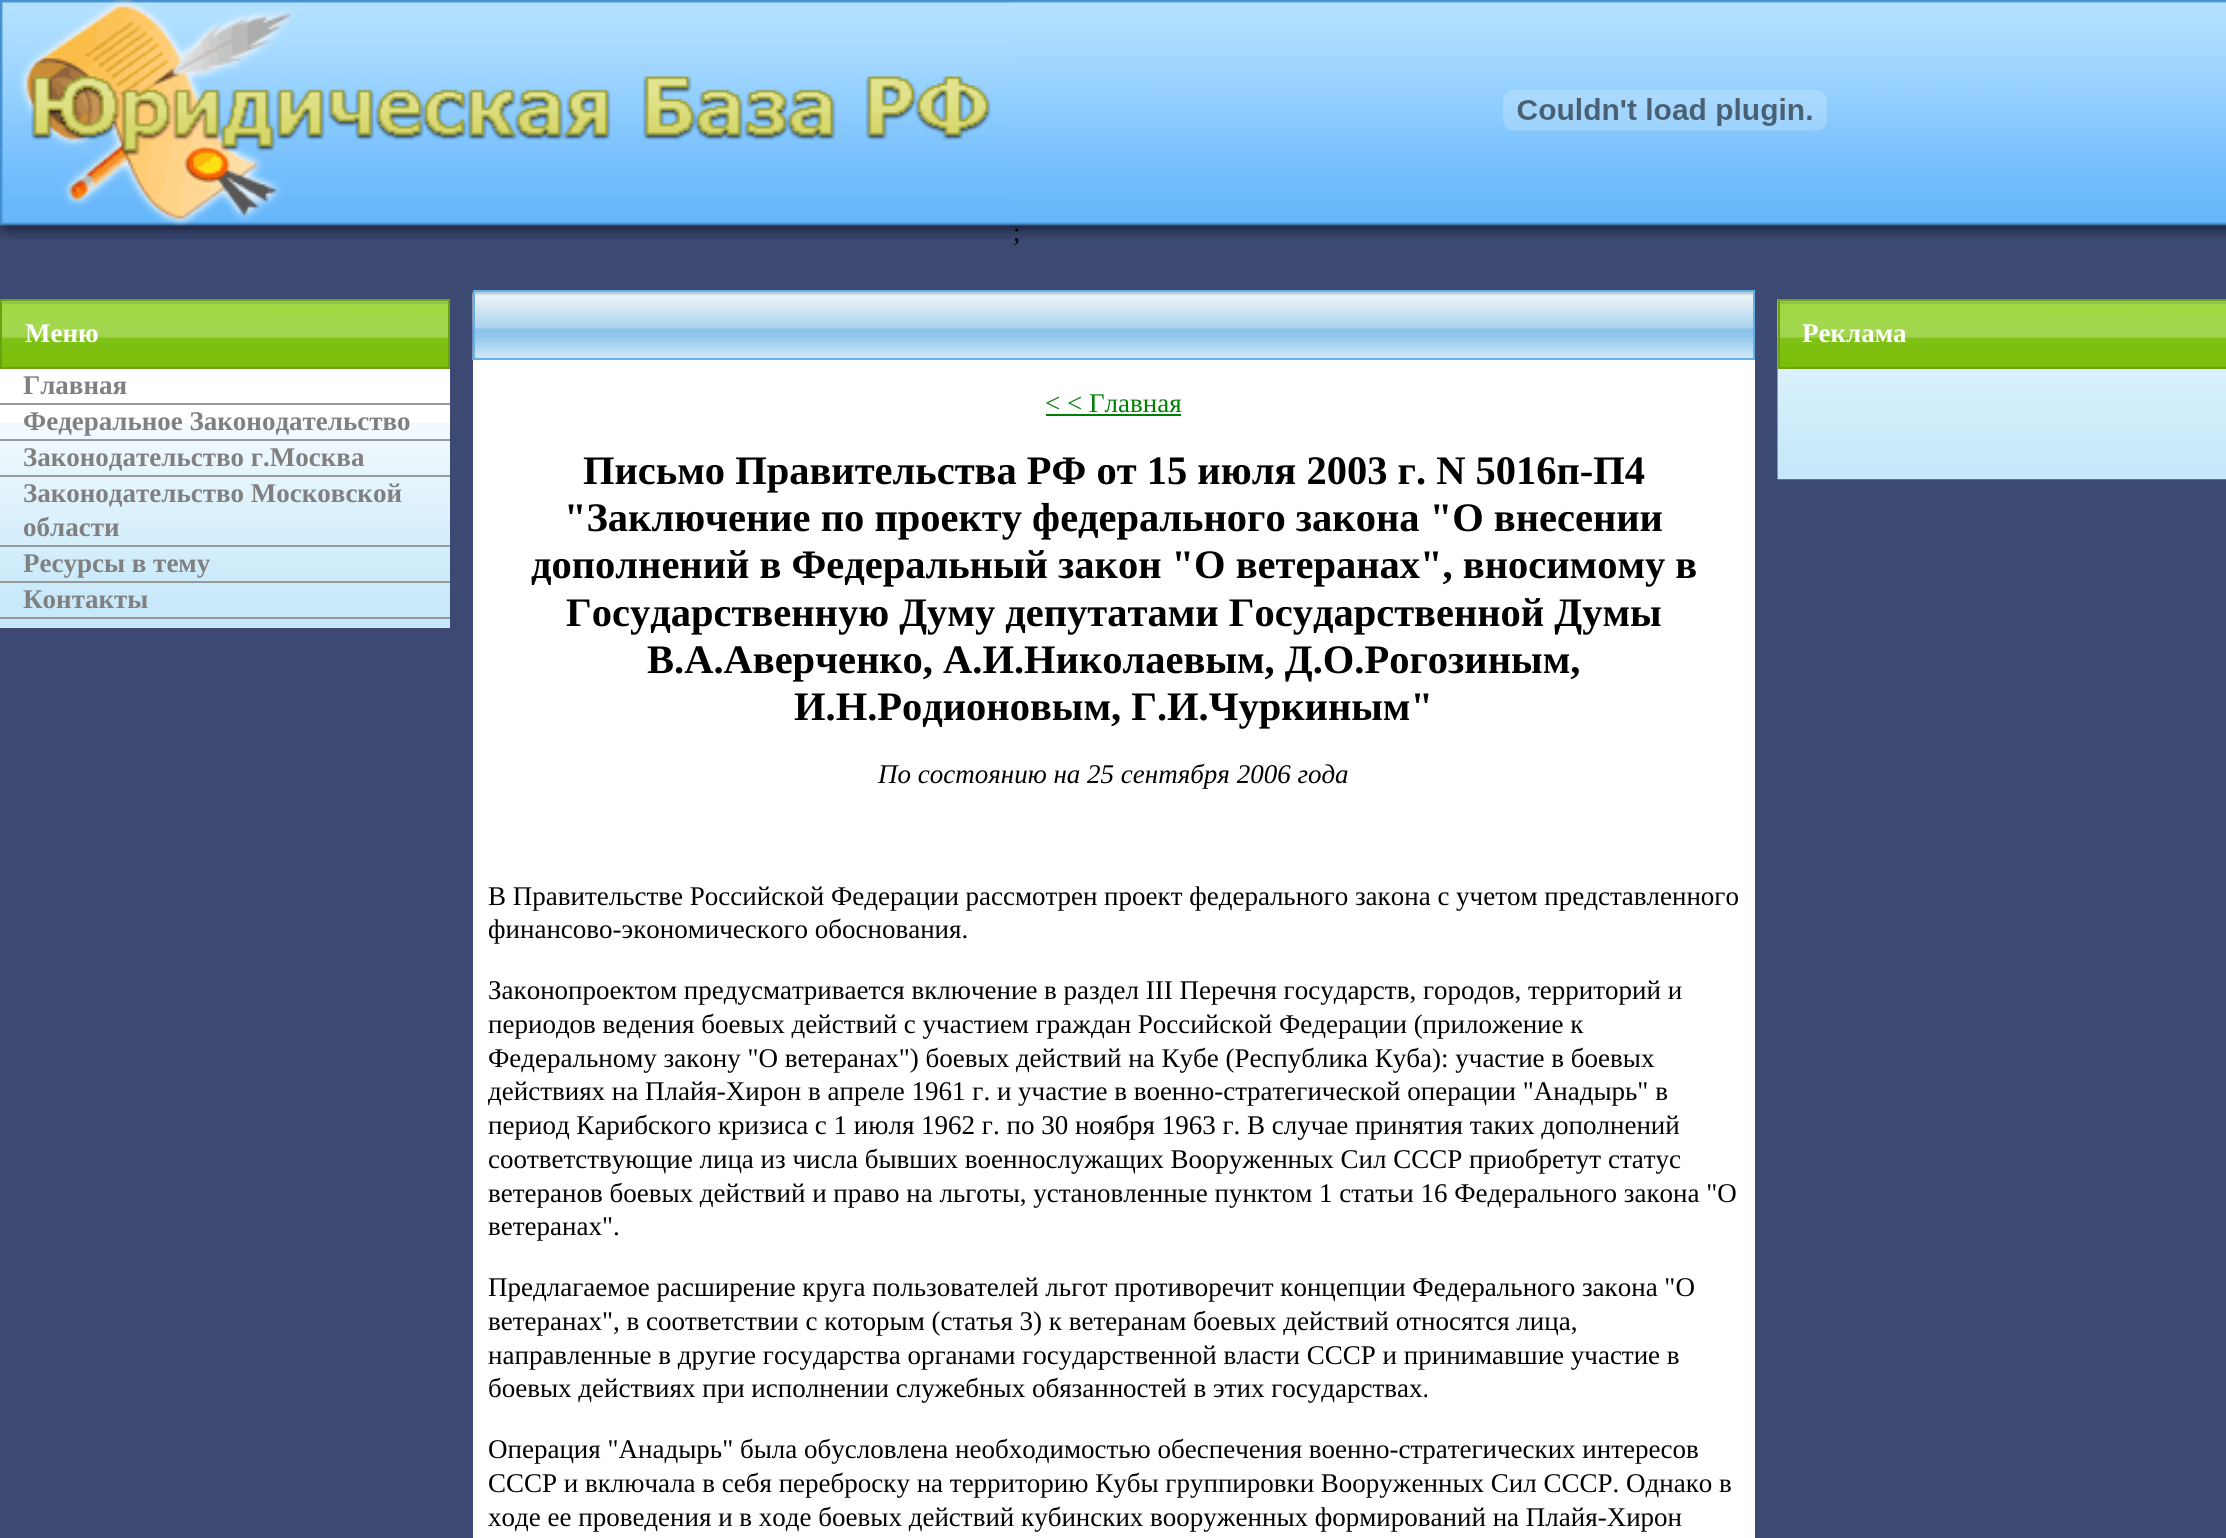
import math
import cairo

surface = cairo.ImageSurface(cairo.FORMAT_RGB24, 2226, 1538)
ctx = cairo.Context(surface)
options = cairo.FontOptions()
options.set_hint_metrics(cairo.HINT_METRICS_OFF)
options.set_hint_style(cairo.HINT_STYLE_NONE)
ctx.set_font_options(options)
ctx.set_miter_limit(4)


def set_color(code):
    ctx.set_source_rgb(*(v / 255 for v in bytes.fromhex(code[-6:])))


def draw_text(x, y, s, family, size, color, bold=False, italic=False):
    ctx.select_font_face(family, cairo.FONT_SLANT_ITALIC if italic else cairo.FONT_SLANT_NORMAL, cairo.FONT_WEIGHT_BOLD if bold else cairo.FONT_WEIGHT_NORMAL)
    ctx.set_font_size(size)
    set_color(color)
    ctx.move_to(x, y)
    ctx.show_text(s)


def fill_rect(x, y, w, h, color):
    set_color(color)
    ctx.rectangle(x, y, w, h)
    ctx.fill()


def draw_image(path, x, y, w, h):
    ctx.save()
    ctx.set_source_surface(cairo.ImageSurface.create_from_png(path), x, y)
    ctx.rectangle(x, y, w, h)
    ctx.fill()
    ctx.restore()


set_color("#3c4972")
ctx.paint()
draw_image("assets/img1.png", 1010, 0, 1216, 239)
draw_image("assets/img2.png", 0, 0, 1010, 240)
draw_image("assets/img3.png", 1503, 90, 324, 41)
draw_text(1013, 241, ";", "Liberation Serif", 27, "#000000")
fill_rect(0, 369, 450, 259, "#ffffff")
draw_image("assets/img4.png", 0, 423, 450, 205)
fill_rect(2, 301, 446, 1, "#98cbee")
draw_image("assets/img5.png", 2, 301, 446, 66)
ctx.rectangle(1, 300, 448, 68)
set_color("#6ba211")
ctx.stroke()
draw_text(25, 342, "Меню", "Liberation Serif", 27, "#ffffff", bold=True)
fill_rect(0, 403, 450, 2, "#999999")
draw_text(23, 394, "Главная", "Liberation Serif", 27, "#808080", bold=True)
fill_rect(0, 439, 450, 2, "#999999")
draw_text(23, 430, "Федеральное Законодательство", "Liberation Serif", 27, "#808080", bold=True)
fill_rect(0, 475, 450, 2, "#999999")
draw_text(23, 466, "Законодательство г.Москва", "Liberation Serif", 27, "#808080", bold=True)
fill_rect(0, 545, 450, 2, "#999999")
draw_text(23, 502, "Законодательство Московской", "Liberation Serif", 27, "#808080", bold=True)
draw_text(23, 536, "области", "Liberation Serif", 27, "#808080", bold=True)
fill_rect(0, 581, 450, 2, "#999999")
draw_text(23, 572, "Ресурсы в тему", "Liberation Serif", 27, "#808080", bold=True)
fill_rect(0, 617, 450, 2, "#999999")
draw_text(23, 608, "Контакты", "Liberation Serif", 27, "#808080", bold=True)
draw_image("assets/img6.png", 1777, 299, 449, 181)
fill_rect(1780, 301, 446, 1, "#98cbee")
draw_image("assets/img7.png", 1777, 301, 449, 68)
ctx.rectangle(1779, 300, 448, 68)
set_color("#6ba211")
ctx.stroke()
draw_text(1802, 342, "Реклама", "Liberation Serif", 27, "#ffffff", bold=True)
fill_rect(473, 360, 1282, 1178, "#ffffff")
fill_rect(475, 292, 1278, 1, "#98cbee")
draw_image("assets/img8.png", 472, 292, 1281, 68)
ctx.rectangle(474, 291, 1280, 68)
set_color("#64b1e6")
ctx.stroke()
draw_text(1045, 412, "< < Главная", "Liberation Serif", 27, "#008000")
fill_rect(1046, 414, 135, 2, "#008000")
draw_text(583, 484, "Письмо Правительства РФ от 15 июля 2003 г. N 5016п-П4", "Liberation Serif", 40.5, "#000000", bold=True)
draw_text(564, 531, "\"Заключение по проекту федерального закона \"О внесении", "Liberation Serif", 40.5, "#000000", bold=True)
draw_text(531, 578, "дополнений в Федеральный закон \"О ветеранах\", вносимому в", "Liberation Serif", 40.5, "#000000", bold=True)
draw_text(566, 626, "Государственную Думу депутатами Государственной Думы", "Liberation Serif", 40.5, "#000000", bold=True)
draw_text(647, 673, "В.А.Аверченко, А.И.Николаевым, Д.О.Рогозиным,", "Liberation Serif", 40.5, "#000000", bold=True)
draw_text(794, 720, "И.Н.Родионовым, Г.И.Чуркиным\"", "Liberation Serif", 40.5, "#000000", bold=True)
draw_text(878, 783, "По состоянию на 25 сентября 2006 года", "Liberation Serif", 27, "#000000", italic=True)
draw_text(488, 905, "В Правительстве Российской Федерации рассмотрен проект федерального закона с учетом представленного", "Liberation Serif", 27, "#000000")
draw_text(488, 938, "финансово-экономического обоснования.", "Liberation Serif", 27, "#000000")
draw_text(488, 999, "Законопроектом предусматривается включение в раздел III Перечня государств, городов, территорий и", "Liberation Serif", 27, "#000000")
draw_text(488, 1033, "периодов ведения боевых действий с участием граждан Российской Федерации (приложение к", "Liberation Serif", 27, "#000000")
draw_text(488, 1067, "Федеральному закону \"О ветеранах\") боевых действий на Кубе (Республика Куба): участие в боевых", "Liberation Serif", 27, "#000000")
draw_text(488, 1100, "действиях на Плайя-Хирон в апреле 1961 г. и участие в военно-стратегической операции \"Анадырь\" в", "Liberation Serif", 27, "#000000")
draw_text(488, 1134, "период Карибского кризиса с 1 июля 1962 г. по 30 ноября 1963 г. В случае принятия таких дополнений", "Liberation Serif", 27, "#000000")
draw_text(488, 1168, "соответствующие лица из числа бывших военнослужащих Вооруженных Сил СССР приобретут статус", "Liberation Serif", 27, "#000000")
draw_text(488, 1202, "ветеранов боевых действий и право на льготы, установленные пунктом 1 статьи 16 Федерального закона \"О", "Liberation Serif", 27, "#000000")
draw_text(488, 1235, "ветеранах\".", "Liberation Serif", 27, "#000000")
draw_text(488, 1296, "Предлагаемое расширение круга пользователей льгот противоречит концепции Федерального закона \"О", "Liberation Serif", 27, "#000000")
draw_text(488, 1330, "ветеранах\", в соответствии с которым (статья 3) к ветеранам боевых действий относятся лица,", "Liberation Serif", 27, "#000000")
draw_text(488, 1364, "направленные в другие государства органами государственной власти СССР и принимавшие участие в", "Liberation Serif", 27, "#000000")
draw_text(488, 1397, "боевых действиях при исполнении служебных обязанностей в этих государствах.", "Liberation Serif", 27, "#000000")
draw_text(488, 1458, "Операция \"Анадырь\" была обусловлена необходимостью обеспечения военно-стратегических интересов", "Liberation Serif", 27, "#000000")
draw_text(488, 1492, "СССР и включала в себя переброску на территорию Кубы группировки Вооруженных Сил СССР. Однако в", "Liberation Serif", 27, "#000000")
draw_text(488, 1526, "ходе ее проведения и в ходе боевых действий кубинских вооруженных формирований на Плайя-Хирон", "Liberation Serif", 27, "#000000")
surface.write_to_png("output.png")
